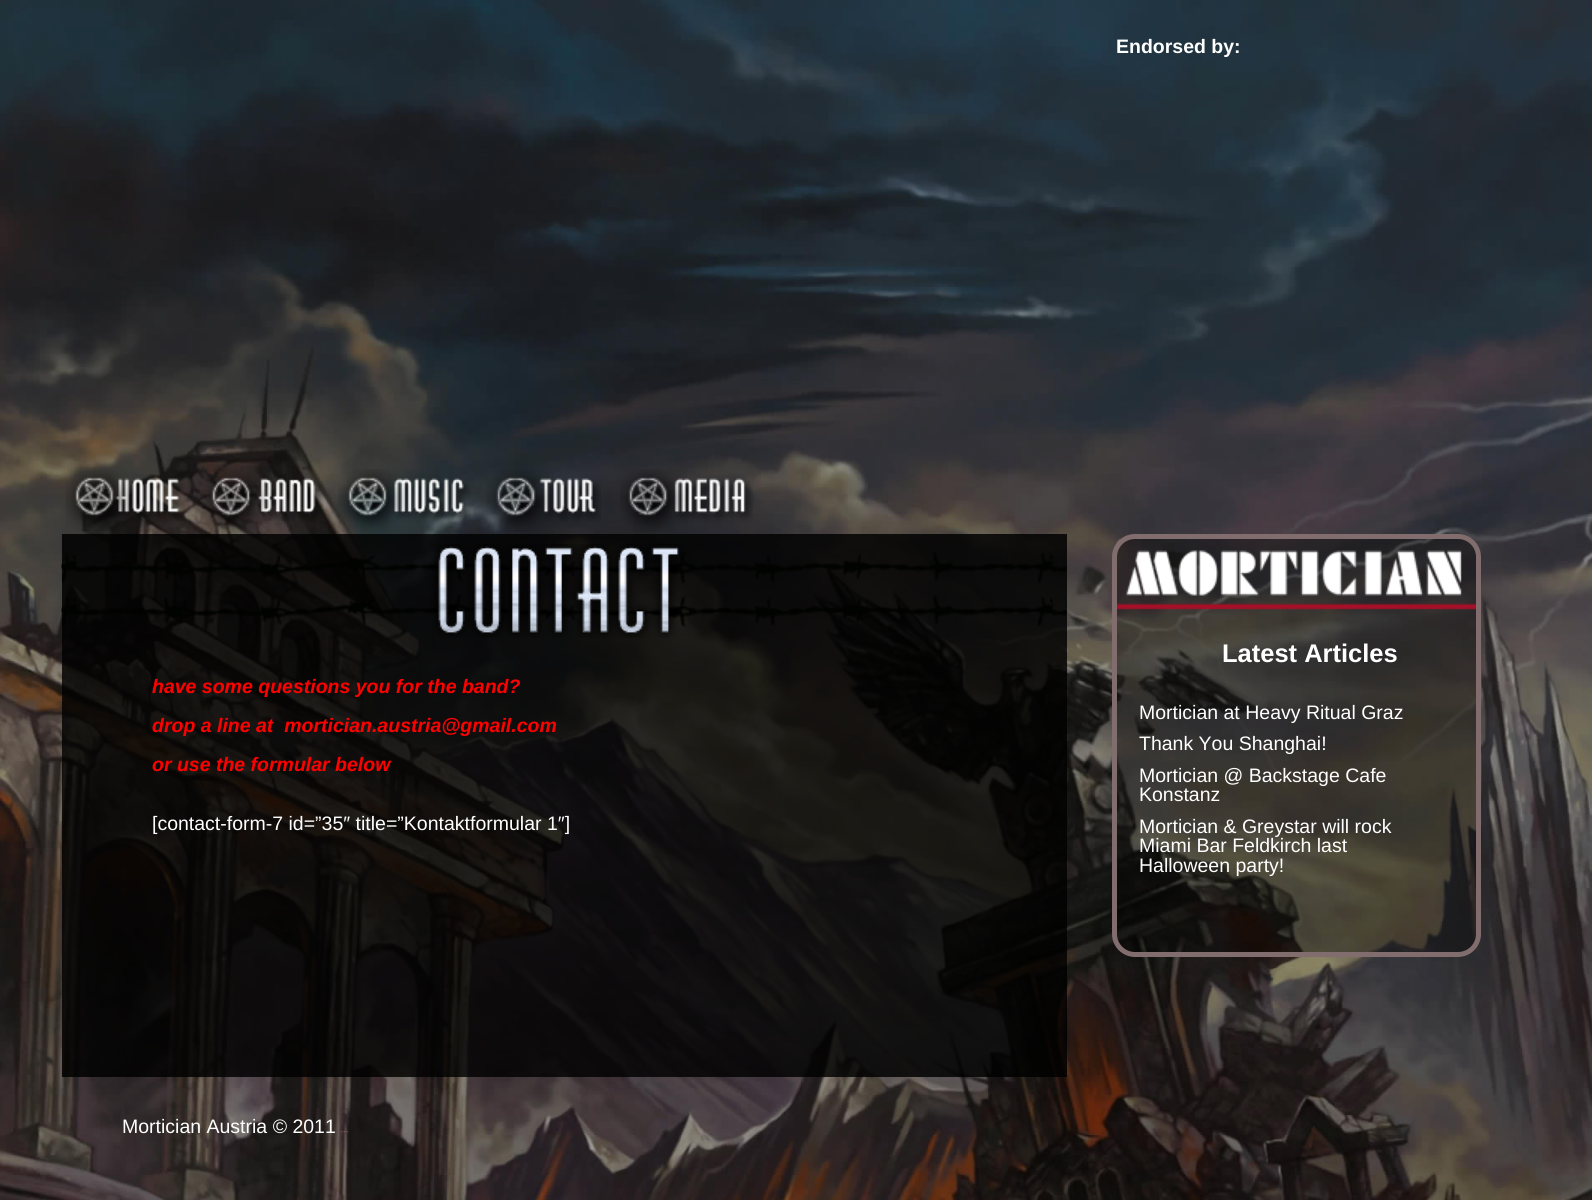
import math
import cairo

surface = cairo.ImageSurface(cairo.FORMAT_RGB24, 1592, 1200)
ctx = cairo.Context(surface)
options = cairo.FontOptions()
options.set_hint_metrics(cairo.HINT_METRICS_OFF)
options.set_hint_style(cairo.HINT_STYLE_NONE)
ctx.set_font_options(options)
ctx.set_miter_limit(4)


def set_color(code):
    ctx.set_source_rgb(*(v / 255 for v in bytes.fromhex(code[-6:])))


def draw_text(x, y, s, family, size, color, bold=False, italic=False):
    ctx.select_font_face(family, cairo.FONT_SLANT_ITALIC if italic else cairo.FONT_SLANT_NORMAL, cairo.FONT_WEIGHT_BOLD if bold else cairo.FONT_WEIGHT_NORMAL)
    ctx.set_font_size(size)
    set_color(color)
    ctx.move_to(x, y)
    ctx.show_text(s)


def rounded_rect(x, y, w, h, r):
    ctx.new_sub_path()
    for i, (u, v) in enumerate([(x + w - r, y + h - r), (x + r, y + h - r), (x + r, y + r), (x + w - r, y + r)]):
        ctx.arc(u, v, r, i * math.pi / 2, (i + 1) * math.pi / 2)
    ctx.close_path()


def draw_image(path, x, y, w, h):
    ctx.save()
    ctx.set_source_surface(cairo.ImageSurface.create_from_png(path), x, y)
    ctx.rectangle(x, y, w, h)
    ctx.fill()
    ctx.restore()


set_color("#ffffff")
ctx.paint()
draw_image("assets/img1.png", 0, 0, 1592, 1200)
ctx.set_source_rgba(0, 0, 0, 0.7)
ctx.rectangle(62, 534, 1005, 543)
ctx.fill()
gradient = cairo.RadialGradient(0, 0, 0, 0, 0, 1)
gradient.set_matrix(cairo.Matrix(1 / 711, 0, 0, 1 / 384, -1 * 564 / 711, -1 * 806 / 384))
gradient.add_color_stop_rgba(0, 0, 0, 0, 0)
gradient.add_color_stop_rgba(1, 0, 0, 0, 0.5)
ctx.set_source(gradient)
ctx.rectangle(62, 534, 1005, 543)
ctx.fill()
draw_image("assets/img2.png", 61, 544, 1006, 94)
draw_text(152, 693, "have some questions you for the band?", "Liberation Sans", 19.5, "#ff0000", bold=True, italic=True)
draw_text(152, 732, "drop a line at  mortician.austria@gmail.com", "Liberation Sans", 19.5, "#ff0000", bold=True, italic=True)
draw_text(152, 771, "or use the formular below", "Liberation Sans", 19.5, "#ff0000", bold=True, italic=True)
draw_text(152, 830, "[contact-form-7 id=”35″ title=”Kontaktformular 1″]", "Liberation Sans", 19.5, "#ffffff")
draw_image("assets/img3.png", 1116, 538, 362, 419)
rounded_rect(1114.5, 536.5, 364, 418, 20.5)
set_color("#816d6e")
ctx.set_line_width(5)
ctx.stroke()
draw_text(1116, 53, "Endorsed by:", "Liberation Sans", 19.5, "#ffffff", bold=True)
draw_text(1222, 662, "Latest Articles", "Liberation Sans", 25.5, "#ffffff", bold=True)
draw_text(1139, 719, "Mortician at Heavy Ritual Graz", "Liberation Sans", 19.5, "#ffffff")
draw_text(1139, 750, "Thank You Shanghai!", "Liberation Sans", 19.5, "#ffffff")
draw_text(1139, 782, "Mortician @ Backstage Cafe", "Liberation Sans", 19.5, "#ffffff")
draw_text(1139, 801, "Konstanz", "Liberation Sans", 19.5, "#ffffff")
draw_text(1139, 833, "Mortician & Greystar will rock", "Liberation Sans", 19.5, "#ffffff")
draw_text(1139, 852, "Miami Bar Feldkirch last", "Liberation Sans", 19.5, "#ffffff")
draw_text(1139, 872, "Halloween party!", "Liberation Sans", 19.5, "#ffffff")
draw_image("assets/img4.png", 65, 467, 120, 64)
draw_image("assets/img5.png", 201, 469, 123, 65)
draw_image("assets/img6.png", 338, 469, 133, 65)
draw_image("assets/img7.png", 486, 469, 115, 63)
draw_image("assets/img8.png", 620, 469, 133, 63)
draw_text(122, 1133, "Mortician Austria © 2011", "Liberation Sans", 19.5, "#ffffff")
draw_image("assets/img9.png", 340, 1131, 2, 2)
draw_image("assets/img10.png", 342, 1131, 2, 2)
draw_image("assets/img11.png", 344, 1131, 1, 2)
draw_image("assets/img12.png", 345, 1131, 2, 2)
draw_image("assets/img13.png", 347, 1131, 1, 2)
surface.write_to_png("output.png")
